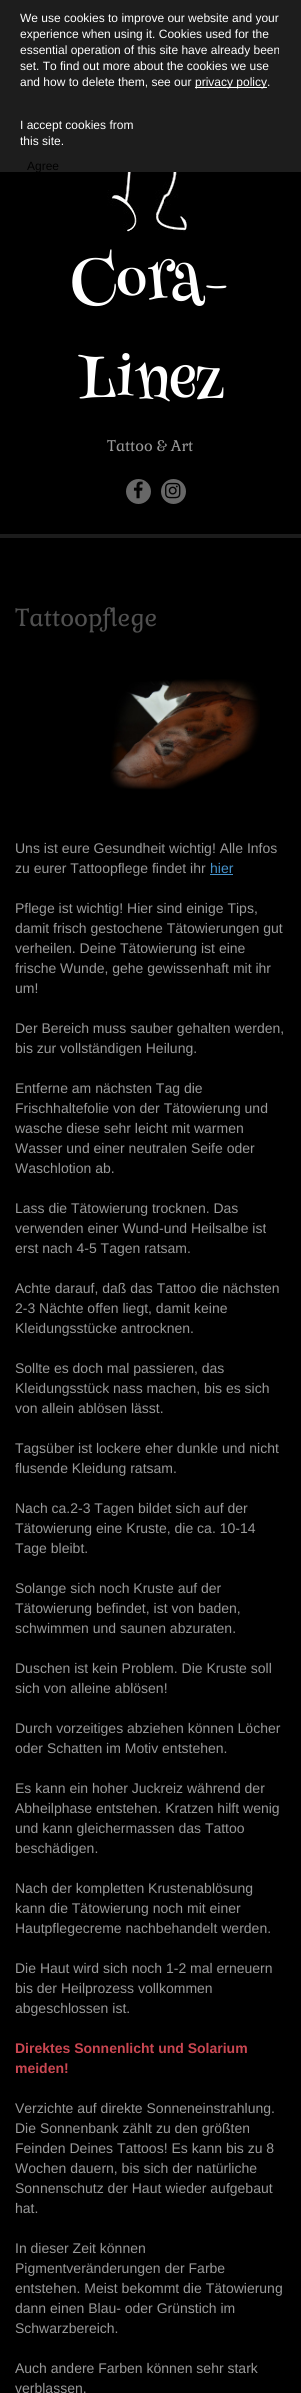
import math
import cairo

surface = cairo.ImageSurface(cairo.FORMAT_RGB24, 301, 2393)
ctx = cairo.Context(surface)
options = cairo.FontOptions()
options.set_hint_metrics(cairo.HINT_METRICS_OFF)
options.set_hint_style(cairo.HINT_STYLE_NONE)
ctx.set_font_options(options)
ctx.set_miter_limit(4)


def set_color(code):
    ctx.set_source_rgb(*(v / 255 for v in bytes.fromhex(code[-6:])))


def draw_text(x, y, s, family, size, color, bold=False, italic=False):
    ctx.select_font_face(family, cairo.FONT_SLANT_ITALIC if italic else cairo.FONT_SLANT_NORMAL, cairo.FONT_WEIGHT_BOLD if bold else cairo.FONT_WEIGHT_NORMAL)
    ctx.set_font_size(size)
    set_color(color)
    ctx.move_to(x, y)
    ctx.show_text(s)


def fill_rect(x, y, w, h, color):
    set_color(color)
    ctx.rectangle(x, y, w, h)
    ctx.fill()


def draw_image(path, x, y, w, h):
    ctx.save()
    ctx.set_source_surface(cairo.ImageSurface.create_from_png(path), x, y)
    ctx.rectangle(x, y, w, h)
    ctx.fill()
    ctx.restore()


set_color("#000000")
ctx.paint()
fill_rect(0, 0, 301, 172, "#1d1d1d")
draw_text(20, 22, "We use cookies to improve our website and your", "Liberation Sans", 12, "#ffffff")
draw_text(20, 38, "experience when using it. Cookies used for the", "Liberation Sans", 12, "#ffffff")
draw_text(20, 54, "essential operation of this site have already been", "Liberation Sans", 12, "#ffffff")
draw_text(20, 70, "set. To find out more about the cookies we use", "Liberation Sans", 12, "#ffffff")
draw_text(20, 86, "and how to delete them, see our", "Liberation Sans", 12, "#ffffff")
fill_rect(195, 87, 72, 1, "#ffffff")
draw_text(195, 86, "privacy policy.", "Liberation Sans", 12, "#ffffff")
draw_text(20, 129, "I accept cookies from", "Liberation Sans", 12, "#ffffff")
draw_text(20, 145, "this site.", "Liberation Sans", 12, "#ffffff")
draw_text(27, 170, "Agree", "Liberation Sans", 12, "#000000")
fill_rect(0, 534, 301, 4, "#1c1c1c")
draw_image("assets/img1.png", 75, 172, 139, 60)
draw_text(72, 300, "Cora-", "Henny Penny", 60, "#ffffff")
draw_text(77, 400, "Linez", "Henny Penny", 60, "#ffffff")
draw_text(107, 451, "Tattoo & Art", "Gabriela", 15, "#989898")
set_color("#676767")
ctx.new_path()
ctx.arc(138.5, 491.5, 12.5, 0, 2 * math.pi)
ctx.fill()
draw_image("assets/img2.png", 133, 481, 10, 18)
ctx.arc(173.5, 491.5, 12.5, 0, 2 * math.pi)
ctx.fill()
draw_image("assets/img3.png", 165, 482, 16, 17)
draw_text(15, 626, "Tattoopflege", "Gabriela", 24, "#505050")
draw_image("assets/img4.png", 110, 679, 150, 111)
draw_text(15, 853, "Uns ist eure Gesundheit wichtig! Alle Infos", "Liberation Sans", 14, "#989898")
draw_text(15, 873, "zu eurer Tattoopflege findet ihr", "Liberation Sans", 14, "#989898")
draw_text(210, 873, "hier", "Liberation Sans", 14, "#4793cb")
fill_rect(210, 874, 23, 1, "#4793cb")
draw_text(15, 913, "Pflege ist wichtig! Hier sind einige Tips,", "Liberation Sans", 14, "#989898")
draw_text(15, 933, "damit frisch gestochene Tätowierungen gut", "Liberation Sans", 14, "#989898")
draw_text(15, 953, "verheilen. Deine Tätowierung ist eine", "Liberation Sans", 14, "#989898")
draw_text(15, 973, "frische Wunde, gehe gewissenhaft mit ihr", "Liberation Sans", 14, "#989898")
draw_text(15, 993, "um!", "Liberation Sans", 14, "#989898")
draw_text(15, 1033, "Der Bereich muss sauber gehalten werden,", "Liberation Sans", 14, "#989898")
draw_text(15, 1053, "bis zur vollständigen Heilung.", "Liberation Sans", 14, "#989898")
draw_text(15, 1093, "Entferne am nächsten Tag die", "Liberation Sans", 14, "#989898")
draw_text(15, 1113, "Frischhaltefolie von der Tätowierung und", "Liberation Sans", 14, "#989898")
draw_text(15, 1133, "wasche diese sehr leicht mit warmen", "Liberation Sans", 14, "#989898")
draw_text(15, 1153, "Wasser und einer neutralen Seife oder", "Liberation Sans", 14, "#989898")
draw_text(15, 1173, "Waschlotion ab.", "Liberation Sans", 14, "#989898")
draw_text(15, 1213, "Lass die Tätowierung trocknen. Das", "Liberation Sans", 14, "#989898")
draw_text(15, 1233, "verwenden einer Wund-und Heilsalbe ist", "Liberation Sans", 14, "#989898")
draw_text(15, 1253, "erst nach 4-5 Tagen ratsam.", "Liberation Sans", 14, "#989898")
draw_text(15, 1293, "Achte darauf, daß das Tattoo die nächsten", "Liberation Sans", 14, "#989898")
draw_text(15, 1313, "2-3 Nächte offen liegt, damit keine", "Liberation Sans", 14, "#989898")
draw_text(15, 1333, "Kleidungsstücke antrocknen.", "Liberation Sans", 14, "#989898")
draw_text(15, 1373, "Sollte es doch mal passieren, das", "Liberation Sans", 14, "#989898")
draw_text(15, 1393, "Kleidungsstück nass machen, bis es sich", "Liberation Sans", 14, "#989898")
draw_text(15, 1413, "von allein ablösen lässt.", "Liberation Sans", 14, "#989898")
draw_text(15, 1453, "Tagsüber ist lockere eher dunkle und nicht", "Liberation Sans", 14, "#989898")
draw_text(15, 1473, "flusende Kleidung ratsam.", "Liberation Sans", 14, "#989898")
draw_text(15, 1513, "Nach ca.2-3 Tagen bildet sich auf der", "Liberation Sans", 14, "#989898")
draw_text(15, 1533, "Tätowierung eine Kruste, die ca. 10-14", "Liberation Sans", 14, "#989898")
draw_text(15, 1553, "Tage bleibt.", "Liberation Sans", 14, "#989898")
draw_text(15, 1593, "Solange sich noch Kruste auf der", "Liberation Sans", 14, "#989898")
draw_text(15, 1613, "Tätowierung befindet, ist von baden,", "Liberation Sans", 14, "#989898")
draw_text(15, 1633, "schwimmen und saunen abzuraten.", "Liberation Sans", 14, "#989898")
draw_text(15, 1673, "Duschen ist kein Problem. Die Kruste soll", "Liberation Sans", 14, "#989898")
draw_text(15, 1693, "sich von alleine ablösen!", "Liberation Sans", 14, "#989898")
draw_text(15, 1733, "Durch vorzeitiges abziehen können Löcher", "Liberation Sans", 14, "#989898")
draw_text(15, 1753, "oder Schatten im Motiv entstehen.", "Liberation Sans", 14, "#989898")
draw_text(15, 1793, "Es kann ein hoher Juckreiz während der", "Liberation Sans", 14, "#989898")
draw_text(15, 1813, "Abheilphase entstehen. Kratzen hilft wenig", "Liberation Sans", 14, "#989898")
draw_text(15, 1833, "und kann gleichermassen das Tattoo", "Liberation Sans", 14, "#989898")
draw_text(15, 1853, "beschädigen.", "Liberation Sans", 14, "#989898")
draw_text(15, 1893, "Nach der kompletten Krustenablösung", "Liberation Sans", 14, "#989898")
draw_text(15, 1913, "kann die Tätowierung noch mit einer", "Liberation Sans", 14, "#989898")
draw_text(15, 1933, "Hautpflegecreme nachbehandelt werden.", "Liberation Sans", 14, "#989898")
draw_text(15, 1973, "Die Haut wird sich noch 1-2 mal erneuern", "Liberation Sans", 14, "#989898")
draw_text(15, 1993, "bis der Heilprozess vollkommen", "Liberation Sans", 14, "#989898")
draw_text(15, 2013, "abgeschlossen ist.", "Liberation Sans", 14, "#989898")
draw_text(15, 2053, "Direktes Sonnenlicht und Solarium", "Liberation Sans", 14, "#cb4752", bold=True)
draw_text(15, 2073, "meiden!", "Liberation Sans", 14, "#cb4752", bold=True)
draw_text(15, 2113, "Verzichte auf direkte Sonneneinstrahlung.", "Liberation Sans", 14, "#989898")
draw_text(15, 2133, "Die Sonnenbank zählt zu den größten", "Liberation Sans", 14, "#989898")
draw_text(15, 2153, "Feinden Deines Tattoos! Es kann bis zu 8", "Liberation Sans", 14, "#989898")
draw_text(15, 2173, "Wochen dauern, bis sich der natürliche", "Liberation Sans", 14, "#989898")
draw_text(15, 2193, "Sonnenschutz der Haut wieder aufgebaut", "Liberation Sans", 14, "#989898")
draw_text(15, 2213, "hat.", "Liberation Sans", 14, "#989898")
draw_text(15, 2253, "In dieser Zeit können", "Liberation Sans", 14, "#989898")
draw_text(15, 2273, "Pigmentveränderungen der Farbe", "Liberation Sans", 14, "#989898")
draw_text(15, 2293, "entstehen. Meist bekommt die Tätowierung", "Liberation Sans", 14, "#989898")
draw_text(15, 2313, "dann einen Blau- oder Grünstich im", "Liberation Sans", 14, "#989898")
draw_text(15, 2333, "Schwarzbereich.", "Liberation Sans", 14, "#989898")
draw_text(15, 2373, "Auch andere Farben können sehr stark", "Liberation Sans", 14, "#989898")
draw_text(15, 2393, "verblassen.", "Liberation Sans", 14, "#989898")
surface.write_to_png("output.png")
